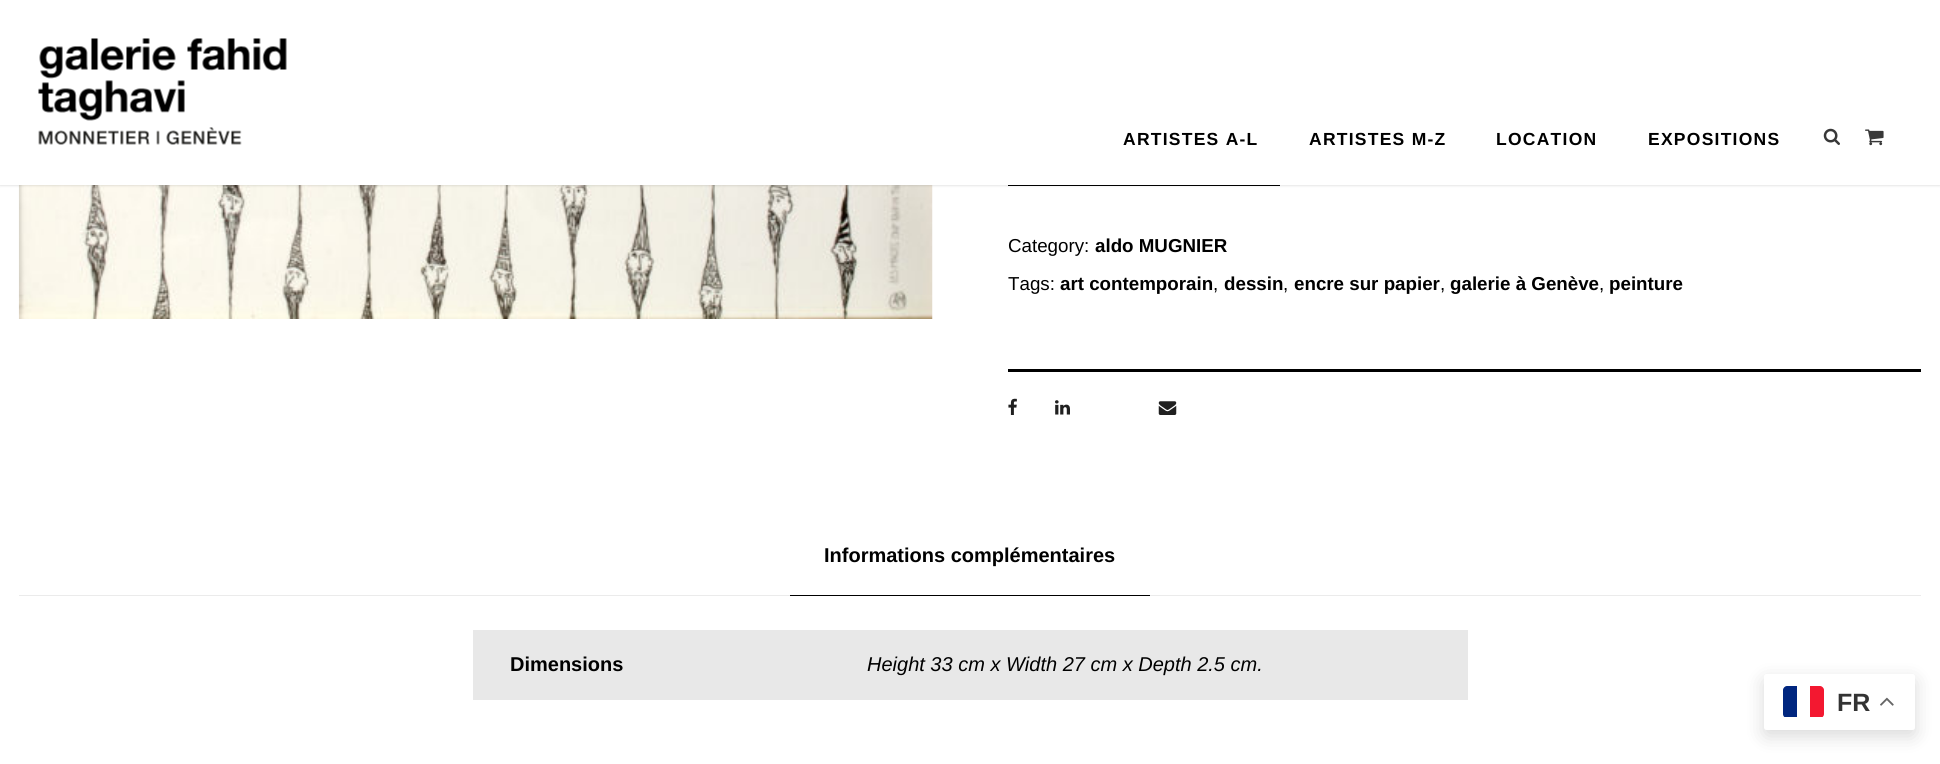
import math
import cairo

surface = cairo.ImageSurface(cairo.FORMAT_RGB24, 1940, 764)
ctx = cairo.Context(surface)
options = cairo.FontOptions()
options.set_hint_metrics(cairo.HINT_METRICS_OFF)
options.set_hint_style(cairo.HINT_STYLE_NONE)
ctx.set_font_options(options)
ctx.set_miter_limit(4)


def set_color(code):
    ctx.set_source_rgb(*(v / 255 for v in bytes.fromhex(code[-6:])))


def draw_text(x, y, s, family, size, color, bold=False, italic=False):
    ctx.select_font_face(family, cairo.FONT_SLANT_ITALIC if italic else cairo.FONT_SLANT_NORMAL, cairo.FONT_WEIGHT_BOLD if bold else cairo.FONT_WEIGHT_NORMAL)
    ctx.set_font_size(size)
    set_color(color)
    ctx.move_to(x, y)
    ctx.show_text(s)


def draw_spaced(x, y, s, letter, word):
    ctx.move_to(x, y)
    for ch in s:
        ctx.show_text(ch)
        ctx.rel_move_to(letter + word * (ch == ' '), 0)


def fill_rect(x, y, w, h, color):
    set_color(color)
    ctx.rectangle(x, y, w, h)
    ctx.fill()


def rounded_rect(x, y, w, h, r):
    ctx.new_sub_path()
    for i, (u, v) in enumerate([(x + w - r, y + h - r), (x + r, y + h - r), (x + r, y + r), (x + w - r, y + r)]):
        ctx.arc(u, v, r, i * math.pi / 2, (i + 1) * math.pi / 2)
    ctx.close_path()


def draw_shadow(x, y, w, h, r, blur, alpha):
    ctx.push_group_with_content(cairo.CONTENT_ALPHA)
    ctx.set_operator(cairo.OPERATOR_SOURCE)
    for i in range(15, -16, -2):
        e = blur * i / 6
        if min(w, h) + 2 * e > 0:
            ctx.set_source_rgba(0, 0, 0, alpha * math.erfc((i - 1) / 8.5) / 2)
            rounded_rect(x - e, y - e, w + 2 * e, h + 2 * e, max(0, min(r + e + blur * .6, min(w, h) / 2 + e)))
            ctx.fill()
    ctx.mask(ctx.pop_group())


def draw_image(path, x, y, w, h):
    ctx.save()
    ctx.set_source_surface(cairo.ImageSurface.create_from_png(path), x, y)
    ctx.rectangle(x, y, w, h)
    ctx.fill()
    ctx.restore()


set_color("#ffffff")
ctx.paint()
draw_image("assets/img4.png", 18, 185, 915, 134)
fill_rect(1008, 185, 272, 1, "#000000")
set_color("#000000")
draw_shadow(0, 1, 1940, 185, 0, 1, 0.1)
fill_rect(0, 0, 1940, 185, "#ffffff")
draw_image("assets/img1.png", 38, 38, 249, 107)
ctx.select_font_face("Liberation Sans", cairo.FONT_SLANT_NORMAL, cairo.FONT_WEIGHT_BOLD)
ctx.set_font_size(17.5)
set_color("#000000")
draw_spaced(1123, 145, "ARTISTES A-L", 1.25, 0)
draw_spaced(1309, 145, "ARTISTES M-Z", 1.25, 0)
draw_spaced(1496, 145, "LOCATION", 1.25, 0)
draw_spaced(1648, 145, "EXPOSITIONS", 1.25, 0)
draw_image("assets/img2.png", 1823, 128, 17, 17)
draw_image("assets/img3.png", 1865, 129, 19, 17)
draw_text(1008, 252, "Category:", "Liberation Sans", 18.75, "#000000")
draw_text(1095, 252, "aldo MUGNIER", "Liberation Sans", 18.75, "#000000", bold=True)
draw_text(1008, 290, "Tags:", "Liberation Sans", 18.75, "#000000")
draw_text(1060, 290, "art contemporain", "Liberation Sans", 18.75, "#000000", bold=True)
draw_text(1213, 290, ",", "Liberation Sans", 18.75, "#000000")
draw_text(1224, 290, "dessin", "Liberation Sans", 18.75, "#000000", bold=True)
draw_text(1283, 290, ",", "Liberation Sans", 18.75, "#000000")
draw_text(1294, 290, "encre sur papier", "Liberation Sans", 18.75, "#000000", bold=True)
draw_text(1440, 290, ",", "Liberation Sans", 18.75, "#000000")
draw_text(1450, 290, "galerie à Genève", "Liberation Sans", 18.75, "#000000", bold=True)
draw_text(1599, 290, ",", "Liberation Sans", 18.75, "#000000")
draw_text(1609, 290, "peinture", "Liberation Sans", 18.75, "#000000", bold=True)
fill_rect(1008, 369, 913, 3, "#000000")
draw_image("assets/img5.png", 1008, 398, 9, 17)
draw_image("assets/img6.png", 1055, 400, 15, 15)
draw_image("assets/img7.png", 1158, 401, 19, 14)
fill_rect(19, 595, 1902, 1, "#ebebeb")
draw_text(824, 562, "Informations complémentaires", "Liberation Sans", 20, "#000000", bold=True)
fill_rect(790, 595, 360, 1, "#000000")
fill_rect(473, 630, 995, 70, "#e8e8e8")
draw_text(510, 671, "Dimensions", "Liberation Sans", 20, "#000000", bold=True)
draw_text(867, 671, "Height 33 cm x Width 27 cm x Depth 2.5 cm.", "Liberation Sans", 20, "#000000", italic=True)
set_color("#000000")
draw_shadow(1764, 680, 151, 56, 2.5, 9.5, 0.15)
set_color("#ffffff")
rounded_rect(1764, 674, 151, 56, 2.5)
ctx.fill()
ctx.save()
rounded_rect(1783, 686, 41, 32, 4)
ctx.clip()
set_color("#00267f")
ctx.new_path()
ctx.move_to(1787, 686)
ctx.line_to(1797, 686)
ctx.line_to(1797, 717)
ctx.line_to(1783, 717)
ctx.line_to(1783, 690)
ctx.curve_to(1783, 688, 1785, 686, 1787, 686)
ctx.close_path()
ctx.fill()
set_color("#f31830")
ctx.new_path()
ctx.move_to(1810, 686)
ctx.line_to(1820, 686)
ctx.curve_to(1822, 686, 1824, 688, 1824, 690)
ctx.line_to(1824, 717)
ctx.line_to(1810, 717)
ctx.close_path()
ctx.fill()
ctx.restore()
draw_text(1837, 711, "FR", "Liberation Sans", 25, "#333333", bold=True)
draw_image("assets/img8.png", 1880, 697, 14, 9)
surface.write_to_png("output.png")
